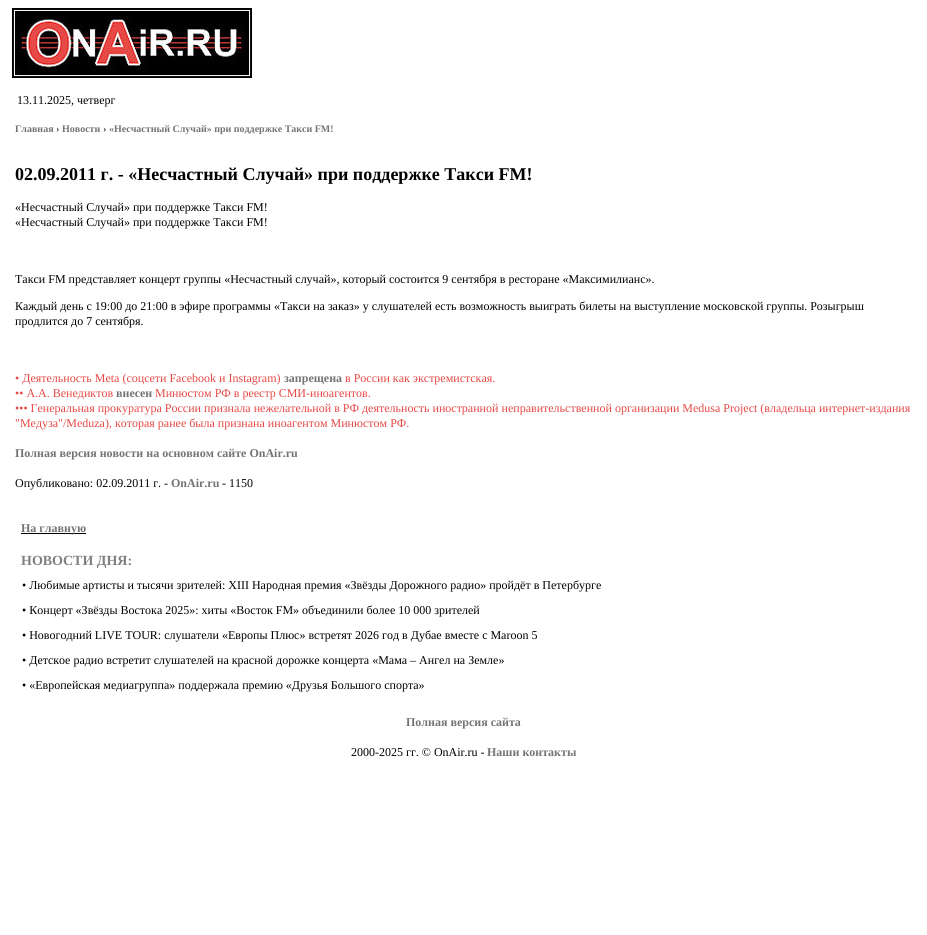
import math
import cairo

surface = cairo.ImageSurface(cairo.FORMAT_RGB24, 927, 935)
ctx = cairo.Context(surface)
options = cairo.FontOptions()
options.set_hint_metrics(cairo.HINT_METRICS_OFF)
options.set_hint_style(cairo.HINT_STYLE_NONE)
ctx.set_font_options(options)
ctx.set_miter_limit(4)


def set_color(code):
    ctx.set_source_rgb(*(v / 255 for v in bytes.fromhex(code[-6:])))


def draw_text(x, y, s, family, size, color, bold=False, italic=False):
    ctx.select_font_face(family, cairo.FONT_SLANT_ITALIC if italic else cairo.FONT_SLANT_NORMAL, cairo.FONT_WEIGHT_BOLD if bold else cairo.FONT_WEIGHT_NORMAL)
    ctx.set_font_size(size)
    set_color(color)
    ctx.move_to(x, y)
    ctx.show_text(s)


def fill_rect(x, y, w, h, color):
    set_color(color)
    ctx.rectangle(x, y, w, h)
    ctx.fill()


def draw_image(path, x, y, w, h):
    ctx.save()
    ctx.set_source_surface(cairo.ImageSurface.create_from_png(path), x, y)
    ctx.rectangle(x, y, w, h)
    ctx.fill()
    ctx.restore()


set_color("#ffffff")
ctx.paint()
draw_image("assets/img1.png", 12, 8, 240, 70)
draw_text(17, 104, "13.11.2025, четверг", "Liberation Serif", 12, "#000000")
draw_text(15, 132, "Главная", "Liberation Serif", 10, "#747474", bold=True)
draw_text(56, 132, "›", "Liberation Serif", 10, "#000000")
draw_text(62, 132, "Новости", "Liberation Serif", 10, "#747474", bold=True)
draw_text(103, 132, "›", "Liberation Serif", 10, "#000000")
draw_text(109, 132, "«Несчастный Случай» при поддержке Такси FM!", "Liberation Serif", 10, "#747474", bold=True)
draw_text(15, 180, "02.09.2011 г. - «Несчастный Случай» при поддержке Такси FM!", "Liberation Serif", 18, "#000000", bold=True)
draw_text(15, 211, "«Несчастный Случай» при поддержке Такси FM!", "Liberation Serif", 12, "#000000")
draw_text(15, 226, "«Несчастный Случай» при поддержке Такси FM!", "Liberation Serif", 12, "#000000")
draw_text(15, 283, "Такси FM представляет концерт группы «Несчастный случай», который состоится 9 сентября в ресторане «Максимилианс».", "Liberation Serif", 12, "#000000")
draw_text(15, 310, "Каждый день с 19:00 до 21:00 в эфире программы «Такси на заказ» у слушателей есть возможность выиграть билеты на выступление московской группы. Розыгрыш", "Liberation Serif", 12, "#000000")
draw_text(15, 325, "продлится до 7 сентября.", "Liberation Serif", 12, "#000000")
draw_text(15, 382, "• Деятельность Meta (соцсети Facebook и Instagram)", "Liberation Serif", 12, "#e64946")
draw_text(284, 382, "запрещена", "Liberation Serif", 12, "#747474", bold=True)
draw_text(345, 382, "в России как экстремистская.", "Liberation Serif", 12, "#e64946")
draw_text(15, 397, "•• А.А. Венедиктов", "Liberation Serif", 12, "#e64946")
draw_text(116, 397, "внесен", "Liberation Serif", 12, "#747474", bold=True)
draw_text(155, 397, "Минюстом РФ в реестр СМИ-иноагентов.", "Liberation Serif", 12, "#e64946")
draw_text(15, 412, "••• Генеральная прокуратура России признала нежелательной в РФ деятельность иностранной неправительственной организации Medusa Project (владельца интернет-издания", "Liberation Serif", 12, "#e64946")
draw_text(15, 427, "\"Медуза\"/Meduza), которая ранее была признана иноагентом Минюстом РФ.", "Liberation Serif", 12, "#e64946")
draw_text(15, 457, "Полная версия новости на основном сайте OnAir.ru", "Liberation Serif", 12, "#747474", bold=True)
draw_text(15, 487, "Опубликовано: 02.09.2011 г. -", "Liberation Serif", 12, "#000000")
draw_text(171, 487, "OnAir.ru", "Liberation Serif", 12, "#747474", bold=True)
draw_text(222, 487, "- 1150", "Liberation Serif", 12, "#000000")
fill_rect(21, 533, 65, 1, "#000000")
draw_text(21, 532, "На главную", "Liberation Serif", 12, "#747474", bold=True)
draw_text(21, 565, "НОВОСТИ ДНЯ:", "Liberation Serif", 14, "#808080", bold=True)
draw_text(22, 589, "• Любимые артисты и тысячи зрителей: XIII Народная премия «Звёзды Дорожного радио» пройдёт в Петербурге", "Liberation Serif", 12, "#000000")
draw_text(22, 614, "• Концерт «Звёзды Востока 2025»: хиты «Восток FM» объединили более 10 000 зрителей", "Liberation Serif", 12, "#000000")
draw_text(22, 639, "• Новогодний LIVE TOUR: слушатели «Европы Плюс» встретят 2026 год в Дубае вместе с Maroon 5", "Liberation Serif", 12, "#000000")
draw_text(22, 664, "• Детское радио встретит слушателей на красной дорожке концерта «Мама – Ангел на Земле»", "Liberation Serif", 12, "#000000")
draw_text(22, 689, "• «Европейская медиагруппа» поддержала премию «Друзья Большого спорта»", "Liberation Serif", 12, "#000000")
draw_text(406, 726, "Полная версия сайта", "Liberation Serif", 12, "#747474", bold=True)
draw_text(351, 756, "2000-2025 гг. © OnAir.ru -", "Liberation Serif", 12, "#000000")
draw_text(487, 756, "Наши контакты", "Liberation Serif", 12, "#747474", bold=True)
surface.write_to_png("output.png")
